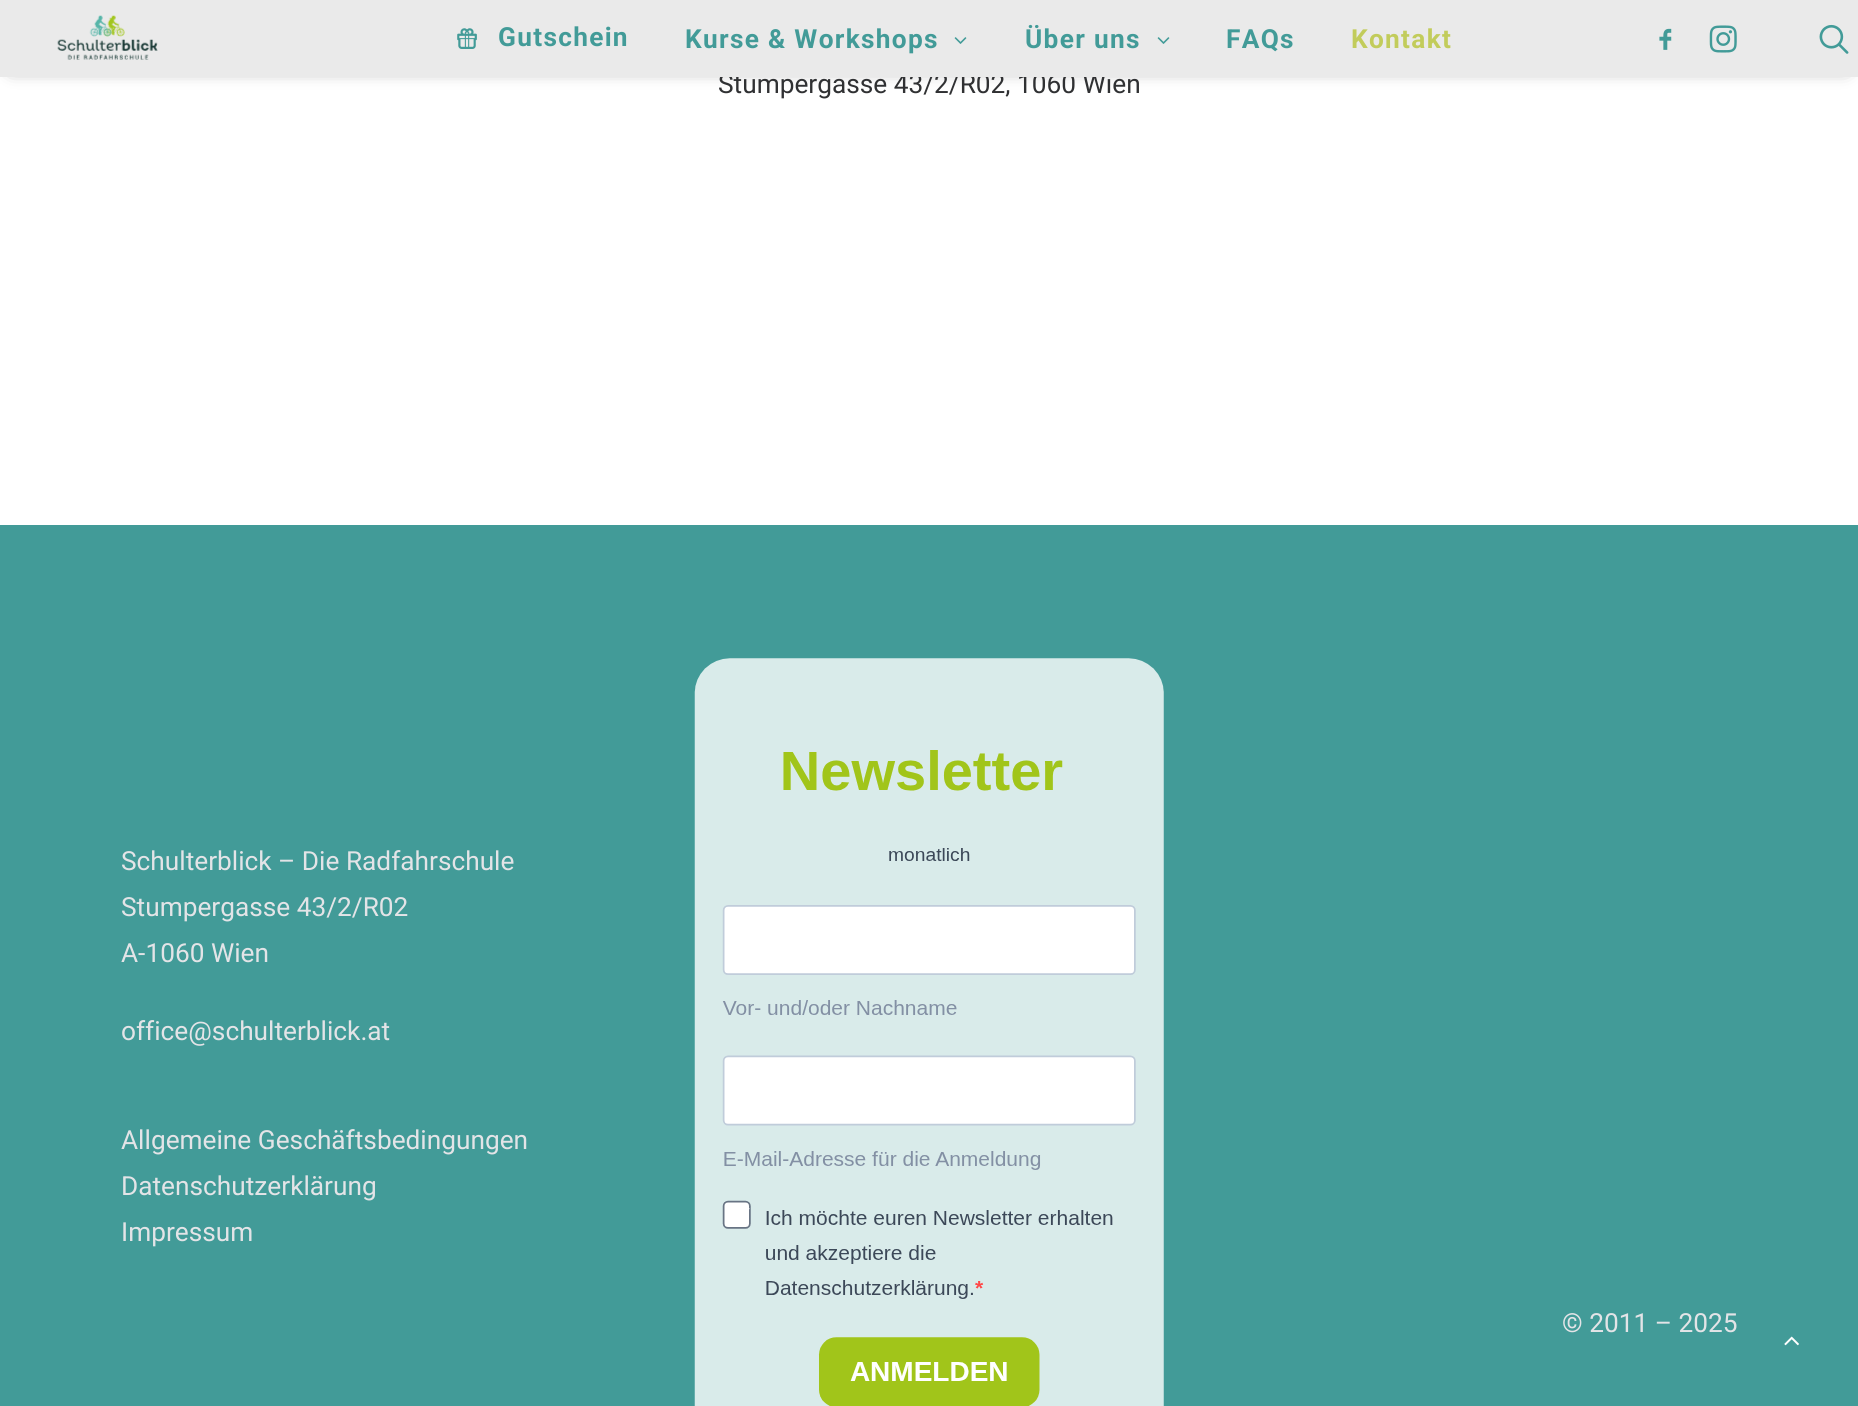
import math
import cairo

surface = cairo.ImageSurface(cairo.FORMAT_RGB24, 1858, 1406)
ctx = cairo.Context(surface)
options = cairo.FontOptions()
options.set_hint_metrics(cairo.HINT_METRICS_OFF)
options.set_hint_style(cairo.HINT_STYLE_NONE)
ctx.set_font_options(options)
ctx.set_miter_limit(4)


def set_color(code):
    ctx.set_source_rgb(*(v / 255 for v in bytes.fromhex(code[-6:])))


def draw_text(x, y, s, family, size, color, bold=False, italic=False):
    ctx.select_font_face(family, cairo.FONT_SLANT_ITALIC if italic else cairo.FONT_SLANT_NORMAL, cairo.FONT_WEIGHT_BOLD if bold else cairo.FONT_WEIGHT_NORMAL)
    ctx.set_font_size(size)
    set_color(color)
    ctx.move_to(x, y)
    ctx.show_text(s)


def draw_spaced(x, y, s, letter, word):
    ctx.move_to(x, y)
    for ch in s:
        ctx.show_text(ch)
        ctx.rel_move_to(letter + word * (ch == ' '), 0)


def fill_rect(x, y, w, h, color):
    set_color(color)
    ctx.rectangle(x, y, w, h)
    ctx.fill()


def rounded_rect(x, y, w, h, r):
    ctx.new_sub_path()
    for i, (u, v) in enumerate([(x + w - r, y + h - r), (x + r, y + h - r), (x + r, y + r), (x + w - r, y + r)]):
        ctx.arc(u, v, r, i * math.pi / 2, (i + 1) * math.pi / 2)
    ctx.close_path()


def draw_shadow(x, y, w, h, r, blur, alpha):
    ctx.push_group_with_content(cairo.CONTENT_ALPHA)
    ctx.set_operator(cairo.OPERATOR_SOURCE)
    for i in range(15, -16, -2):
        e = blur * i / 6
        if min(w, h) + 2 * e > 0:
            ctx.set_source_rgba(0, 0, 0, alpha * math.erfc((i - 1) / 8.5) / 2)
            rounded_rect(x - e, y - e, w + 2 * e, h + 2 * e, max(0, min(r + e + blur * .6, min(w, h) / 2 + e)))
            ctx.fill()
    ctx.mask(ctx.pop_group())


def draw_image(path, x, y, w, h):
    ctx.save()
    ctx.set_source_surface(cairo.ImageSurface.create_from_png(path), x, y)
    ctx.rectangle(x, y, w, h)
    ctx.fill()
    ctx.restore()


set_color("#429b98")
ctx.paint()
fill_rect(0, 77, 1858, 448, "#ffffff")
set_color("#000000")
draw_shadow(12, 25, 1834, 42, 0, 9, 0.6)
draw_text(718, 93, "Stumpergasse 43/2/R02, 1060 Wien", "Roboto", 26.25, "#303133")
fill_rect(0, 0, 1858, 77, "#eaeaea")
draw_image("assets/img1.png", 57, 15, 101, 45)
draw_image("assets/img2.png", 457, 28, 20, 21)
ctx.select_font_face("Roboto", cairo.FONT_SLANT_NORMAL, cairo.FONT_WEIGHT_BOLD)
set_color("#429b98")
draw_spaced(498, 46, "Gutschein", 1.3, 0)
draw_spaced(685, 48, "Kurse & Workshops", 1.3, 0)
draw_image("assets/img3.png", 954, 37, 13, 7)
draw_spaced(1025, 48, "Über uns", 1.3, 0)
draw_image("assets/img3.png", 1157, 37, 13, 7)
draw_spaced(1226, 48, "FAQs", 1.3, 0)
set_color("#c2cc5b")
draw_spaced(1351, 48, "Kontakt", 1.3, 0)
draw_image("assets/img4.png", 1659, 28, 13, 22)
draw_image("assets/img5.png", 1709, 25, 28, 28)
draw_image("assets/img6.png", 1819, 24, 30, 30)
draw_text(121, 870, "Schulterblick – Die Radfahrschule", "Roboto", 26.25, "#e3e4e7")
draw_text(121, 916, "Stumpergasse 43/2/R02", "Roboto", 26.25, "#e3e4e7")
draw_text(121, 962, "A-1060 Wien", "Roboto", 26.25, "#e3e4e7")
draw_text(121, 1040, "office@schulterblick.at", "Roboto", 26.25, "#e3e4e7")
draw_text(121, 1149, "Allgemeine Geschäftsbedingungen", "Roboto", 26.25, "#e3e4e7")
draw_text(121, 1195, "Datenschutzerklärung", "Roboto", 26.25, "#e3e4e7")
draw_text(121, 1241, "Impressum", "Roboto", 26.25, "#e3e4e7")
draw_image("assets/img7.png", 694, 658, 470, 748)
draw_text(1562, 1332, "© 2011 – 2025", "Roboto", 26.25, "#e3e4e7")
draw_image("assets/img8.png", 1784, 1336, 15, 10)
surface.write_to_png("output.png")
